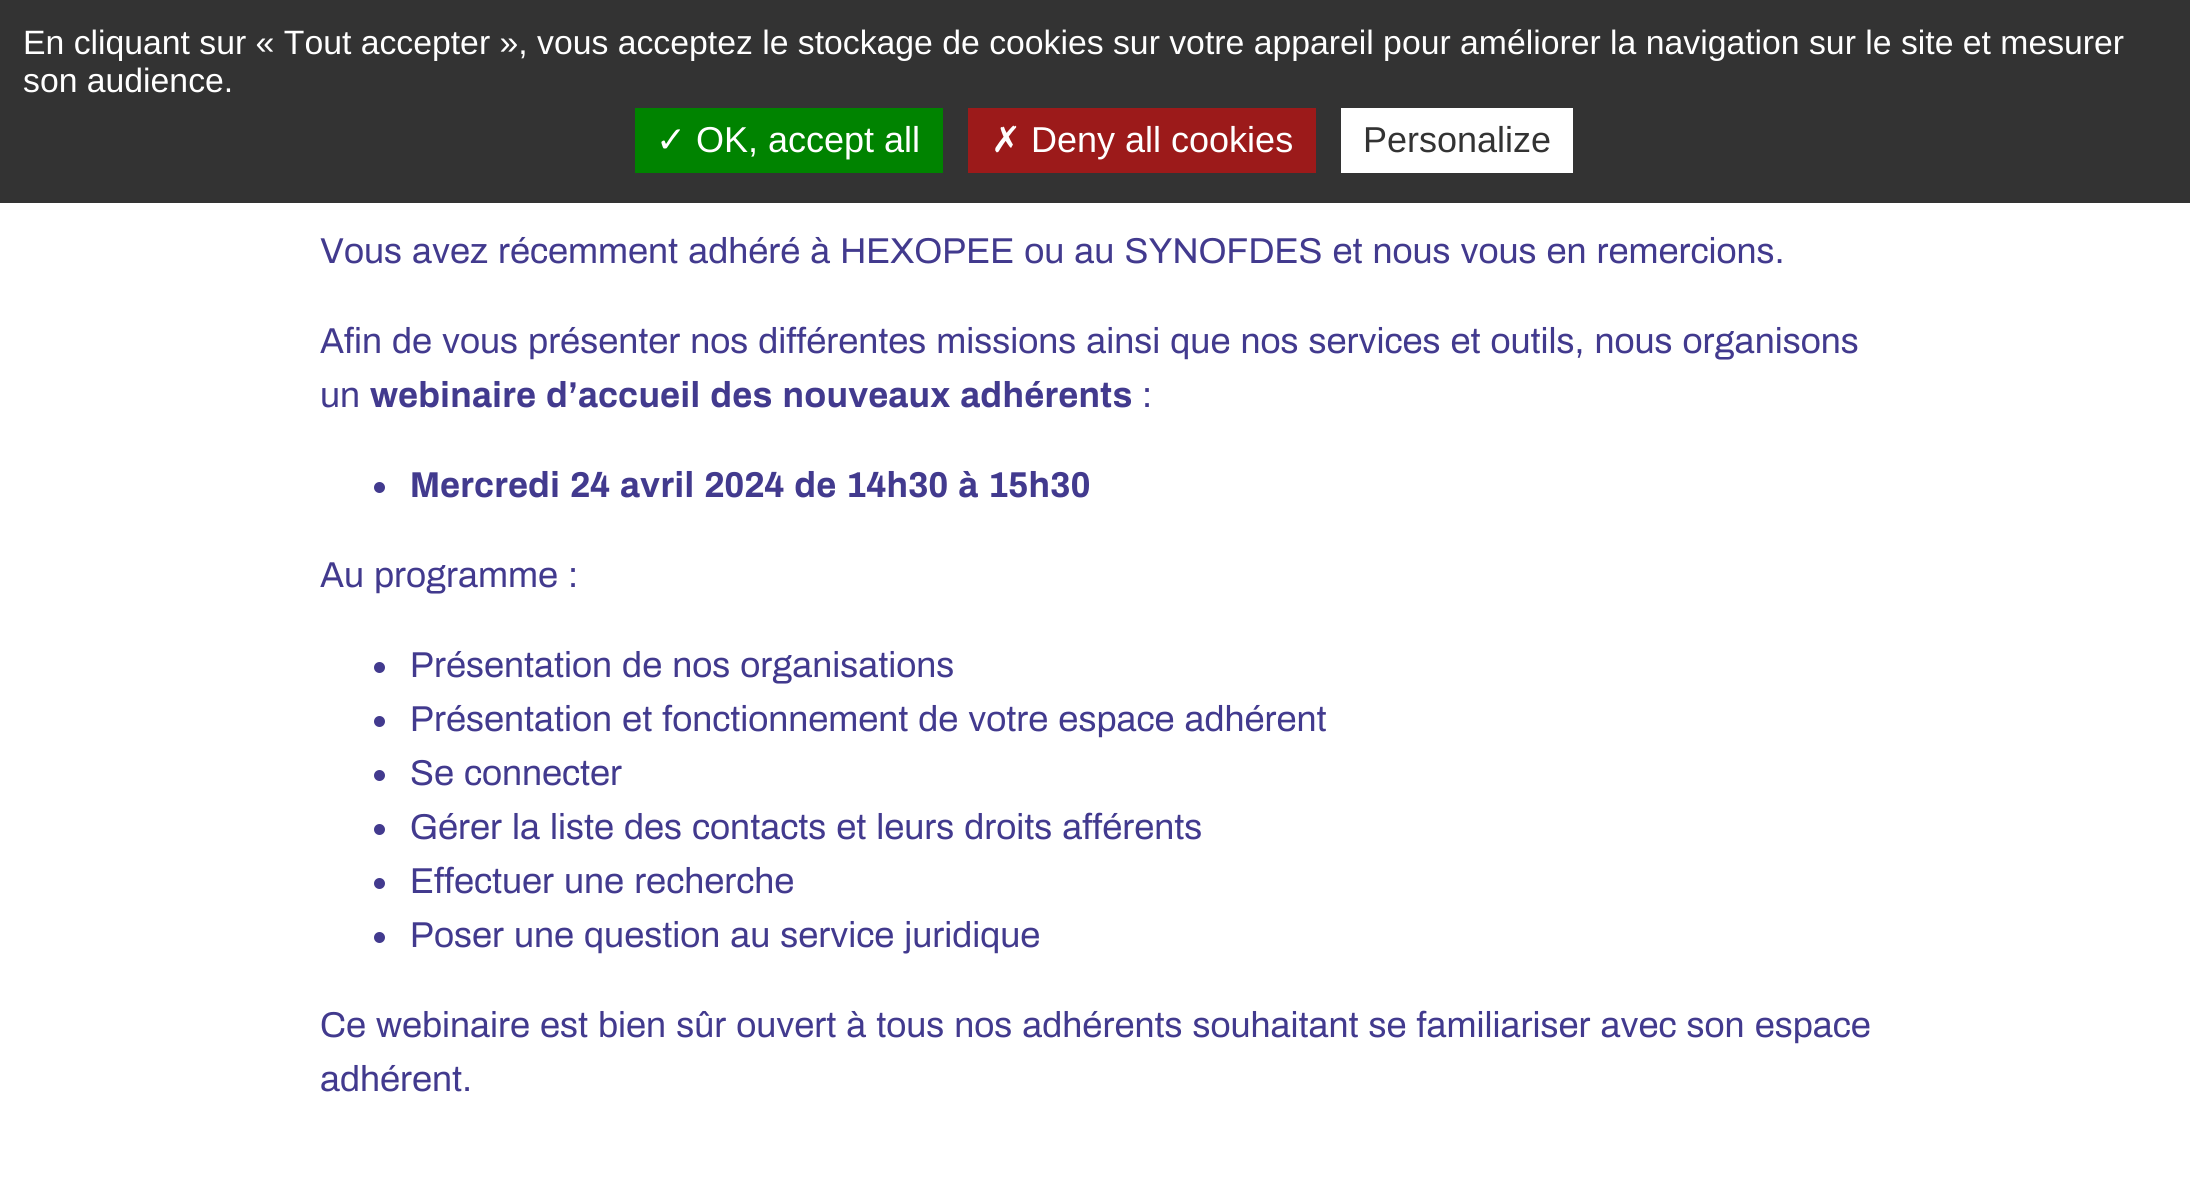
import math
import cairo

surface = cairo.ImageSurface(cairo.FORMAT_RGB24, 2190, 1189)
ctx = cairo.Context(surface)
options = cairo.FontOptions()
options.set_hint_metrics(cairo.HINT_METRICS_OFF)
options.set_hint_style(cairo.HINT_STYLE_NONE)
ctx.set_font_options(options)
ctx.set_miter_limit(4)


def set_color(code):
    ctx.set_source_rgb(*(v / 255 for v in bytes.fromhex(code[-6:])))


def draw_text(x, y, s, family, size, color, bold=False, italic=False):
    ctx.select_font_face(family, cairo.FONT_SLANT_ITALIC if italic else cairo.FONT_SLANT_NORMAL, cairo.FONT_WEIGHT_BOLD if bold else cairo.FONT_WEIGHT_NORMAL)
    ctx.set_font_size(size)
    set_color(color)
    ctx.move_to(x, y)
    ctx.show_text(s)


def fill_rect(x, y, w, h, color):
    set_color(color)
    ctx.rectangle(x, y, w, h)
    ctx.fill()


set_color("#ffffff")
ctx.paint()
fill_rect(0, 0, 2190, 203, "#333333")
draw_text(23, 54, "En cliquant sur « Tout accepter », vous acceptez le stockage de cookies sur votre appareil pour améliorer la navigation sur le site et mesurer", "Liberation Sans", 33.75, "#ffffff")
draw_text(23, 92, "son audience.", "Liberation Sans", 33.75, "#ffffff")
fill_rect(635, 108, 308, 65, "#008300")
draw_text(656, 152, "✓", "DejaVu Sans", 36, "#ffffff")
draw_text(696, 152, "OK, accept all", "Liberation Sans", 36, "#ffffff")
fill_rect(968, 108, 348, 65, "#9c1a1a")
draw_text(991, 152, "✗", "DejaVu Sans", 36, "#ffffff")
draw_text(1031, 152, "Deny all cookies", "Liberation Sans", 36, "#ffffff")
fill_rect(1341, 108, 232, 65, "#ffffff")
draw_text(1363, 152, "Personalize", "Liberation Sans", 36, "#333333")
draw_text(320, 263, "Vous avez récemment adhéré à HEXOPEE ou au SYNOFDES et nous vous en remercions.", "Archivo", 36, "#423a8e")
draw_text(320, 353, "Afin de vous présenter nos différentes missions ainsi que nos services et outils, nous organisons", "Archivo", 36, "#423a8e")
draw_text(320, 407, "un", "Archivo", 36, "#423a8e")
draw_text(370, 407, "webinaire d’accueil des nouveaux adhérents", "Archivo", 36, "#423a8e", bold=True)
draw_text(1142, 407, ":", "Archivo", 36, "#423a8e")
ctx.new_path()
ctx.arc(379.5, 487.5, 5.5, 0, 2 * math.pi)
ctx.fill()
draw_text(410, 497, "Mercredi 24 avril 2024 de 14h30 à 15h30", "Archivo", 36, "#423a8e", bold=True)
draw_text(320, 587, "Au programme :", "Archivo", 36, "#423a8e")
ctx.new_path()
ctx.arc(379.5, 667.5, 5.5, 0, 2 * math.pi)
ctx.fill()
draw_text(410, 677, "Présentation de nos organisations", "Archivo", 36, "#423a8e")
ctx.new_path()
ctx.arc(379.5, 721.5, 5.5, 0, 2 * math.pi)
ctx.fill()
draw_text(410, 731, "Présentation et fonctionnement de votre espace adhérent", "Archivo", 36, "#423a8e")
ctx.new_path()
ctx.arc(379.5, 775.5, 5.5, 0, 2 * math.pi)
ctx.fill()
draw_text(410, 785, "Se connecter", "Archivo", 36, "#423a8e")
ctx.new_path()
ctx.arc(379.5, 829.5, 5.5, 0, 2 * math.pi)
ctx.fill()
draw_text(410, 839, "Gérer la liste des contacts et leurs droits afférents", "Archivo", 36, "#423a8e")
ctx.new_path()
ctx.arc(379.5, 883.5, 5.5, 0, 2 * math.pi)
ctx.fill()
draw_text(410, 893, "Effectuer une recherche", "Archivo", 36, "#423a8e")
ctx.new_path()
ctx.arc(379.5, 937.5, 5.5, 0, 2 * math.pi)
ctx.fill()
draw_text(410, 947, "Poser une question au service juridique", "Archivo", 36, "#423a8e")
draw_text(320, 1037, "Ce webinaire est bien sûr ouvert à tous nos adhérents souhaitant se familiariser avec son espace", "Archivo", 36, "#423a8e")
draw_text(320, 1091, "adhérent.", "Archivo", 36, "#423a8e")
surface.write_to_png("output.png")
